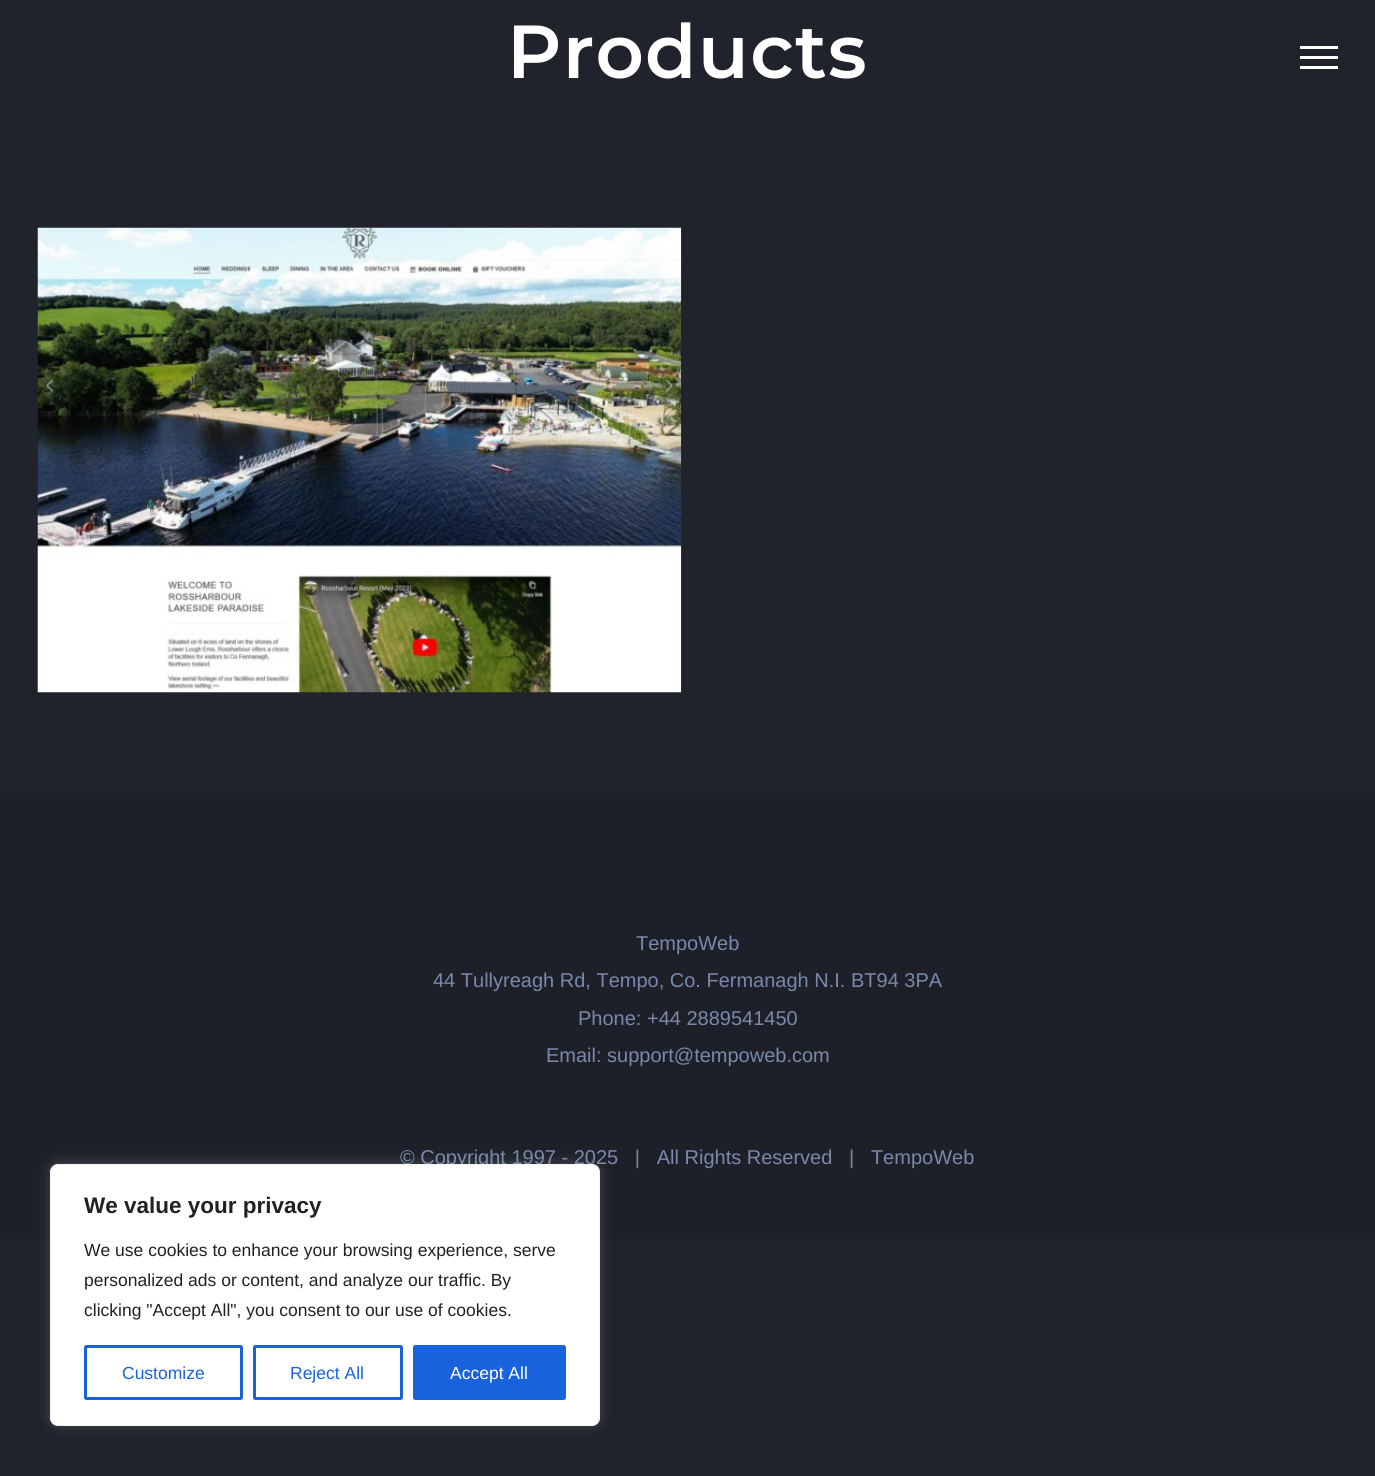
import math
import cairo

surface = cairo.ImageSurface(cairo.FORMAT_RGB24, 1375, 1476)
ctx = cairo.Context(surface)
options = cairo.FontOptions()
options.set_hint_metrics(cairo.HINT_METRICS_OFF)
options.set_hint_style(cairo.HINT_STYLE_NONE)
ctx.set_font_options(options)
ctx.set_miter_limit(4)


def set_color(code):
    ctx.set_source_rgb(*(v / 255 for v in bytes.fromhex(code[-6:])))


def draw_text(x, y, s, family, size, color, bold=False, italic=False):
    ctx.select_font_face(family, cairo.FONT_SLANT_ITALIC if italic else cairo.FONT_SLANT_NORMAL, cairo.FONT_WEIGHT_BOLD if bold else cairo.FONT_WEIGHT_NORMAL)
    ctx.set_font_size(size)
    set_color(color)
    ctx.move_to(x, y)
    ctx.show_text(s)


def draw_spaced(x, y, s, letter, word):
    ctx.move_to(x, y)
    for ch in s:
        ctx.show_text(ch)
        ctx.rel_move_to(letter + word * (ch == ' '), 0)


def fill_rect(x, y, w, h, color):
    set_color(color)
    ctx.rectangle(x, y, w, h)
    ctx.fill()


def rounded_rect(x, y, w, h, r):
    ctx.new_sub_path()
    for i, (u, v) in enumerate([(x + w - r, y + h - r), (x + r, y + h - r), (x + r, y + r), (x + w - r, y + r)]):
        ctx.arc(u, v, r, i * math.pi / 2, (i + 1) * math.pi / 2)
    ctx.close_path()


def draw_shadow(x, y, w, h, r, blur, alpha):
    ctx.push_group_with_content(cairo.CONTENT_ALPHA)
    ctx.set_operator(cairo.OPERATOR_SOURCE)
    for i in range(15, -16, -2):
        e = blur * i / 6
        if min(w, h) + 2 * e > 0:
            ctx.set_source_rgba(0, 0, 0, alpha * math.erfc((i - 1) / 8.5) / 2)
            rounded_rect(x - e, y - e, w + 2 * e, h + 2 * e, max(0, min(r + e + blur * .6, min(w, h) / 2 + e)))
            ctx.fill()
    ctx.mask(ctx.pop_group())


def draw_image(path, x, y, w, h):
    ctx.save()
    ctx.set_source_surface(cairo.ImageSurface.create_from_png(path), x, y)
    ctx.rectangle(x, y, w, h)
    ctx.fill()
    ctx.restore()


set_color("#20232c")
ctx.paint()
ctx.select_font_face("Montserrat SemiBold")
ctx.set_font_size(75)
set_color("#ffffff")
draw_spaced(507, 78, "Products", 1.25, 0)
fill_rect(1300, 46, 38, 3, "#ffffff")
fill_rect(1300, 56, 38, 3, "#ffffff")
fill_rect(1300, 66, 38, 3, "#ffffff")
draw_image("assets/img1.png", 37, 227, 645, 466)
fill_rect(0, 793, 1375, 446, "#1d2028")
draw_text(636, 950, "TempoWeb", "Liberation Sans", 20, "#7a89ab")
draw_text(433, 987, "44 Tullyreagh Rd, Tempo, Co. Fermanagh N.I. BT94 3PA", "Liberation Sans", 20, "#7a89ab")
draw_text(578, 1025, "Phone: +44 2889541450", "Liberation Sans", 20, "#7a89ab")
draw_text(546, 1062, "Email: support@tempoweb.com", "Liberation Sans", 20, "#7a89ab")
draw_text(400, 1164, "© Copyright 1997 - 2025   |   All Rights Reserved   |   TempoWeb", "Liberation Sans", 20, "#7a89ab")
set_color("#acabab")
draw_shadow(50, 1163, 550, 262, 8, 6, 0.3)
set_color("#ffffff")
rounded_rect(50.5, 1164.5, 549, 261, 7.5)
ctx.fill_preserve()
set_color("#f4f4f4")
ctx.set_line_width(1)
ctx.stroke()
draw_text(84, 1213, "We value your privacy", "Liberation Sans", 22.5, "#212121", bold=True)
draw_text(84, 1256, "We use cookies to enhance your browsing experience, serve", "Liberation Sans", 17.5, "#212121")
draw_text(84, 1286, "personalized ads or content, and analyze our traffic. By", "Liberation Sans", 17.5, "#212121")
draw_text(84, 1316, "clicking \"Accept All\", you consent to our use of cookies.", "Liberation Sans", 17.5, "#212121")
rounded_rect(85.5, 1346.5, 156, 52, 1)
set_color("#1863dc")
ctx.set_line_width(3)
ctx.stroke()
draw_text(122, 1379, "Customize", "Liberation Sans", 17.5, "#1863dc")
rounded_rect(254.5, 1346.5, 147, 52, 1)
ctx.stroke()
draw_text(290, 1379, "Reject All", "Liberation Sans", 17.5, "#1863dc")
rounded_rect(414.5, 1346.5, 150, 52, 1)
ctx.fill_preserve()
ctx.stroke()
draw_text(450, 1379, "Accept All", "Liberation Sans", 17.5, "#ffffff")
surface.write_to_png("output.png")
